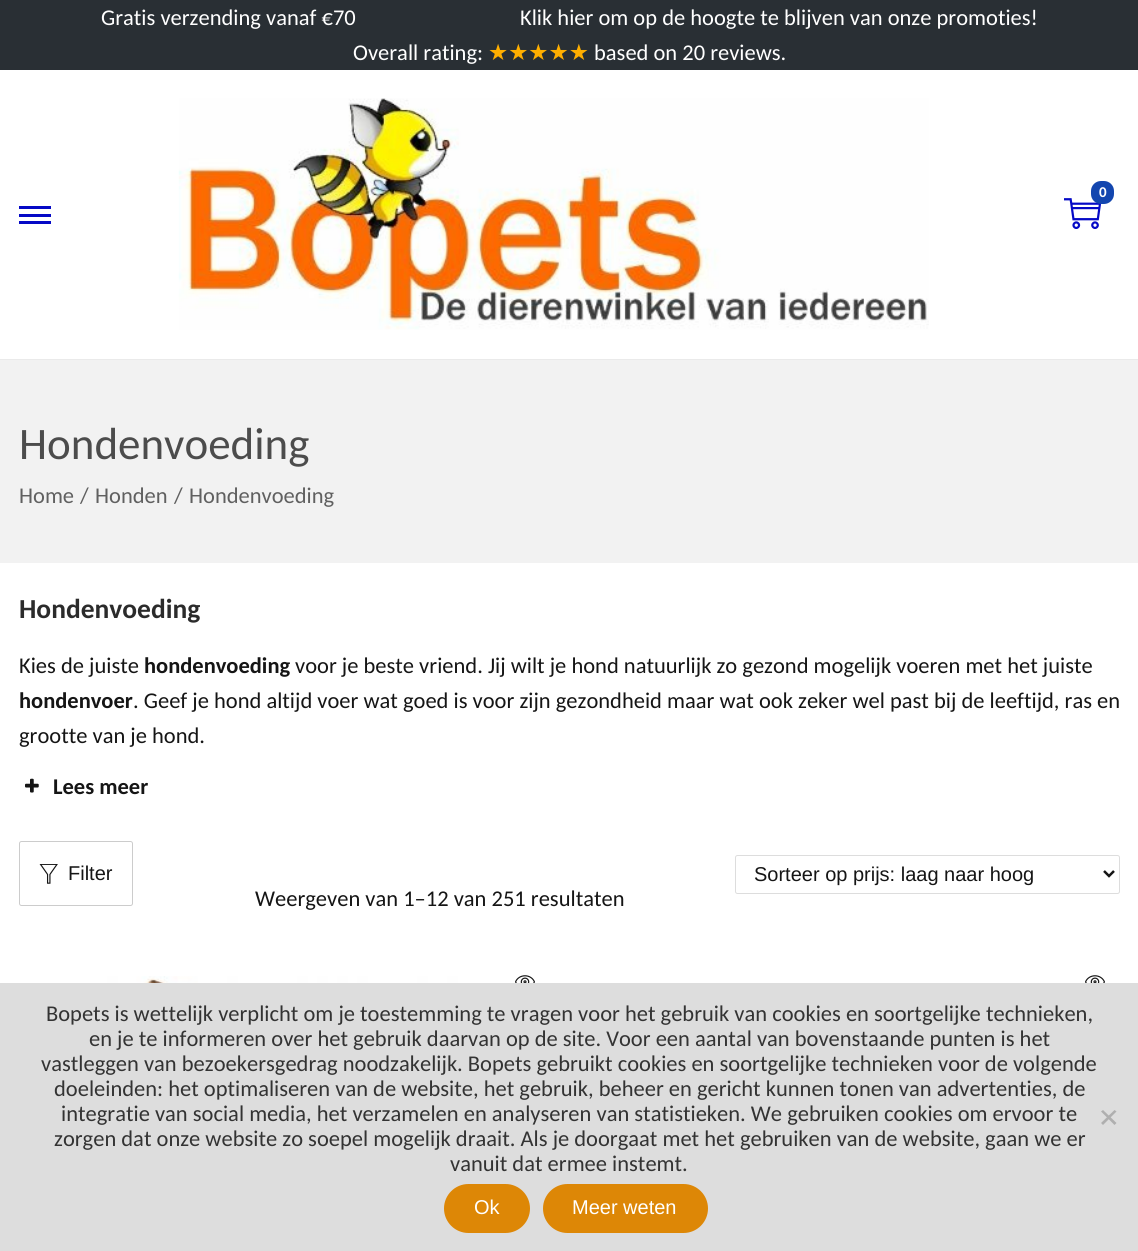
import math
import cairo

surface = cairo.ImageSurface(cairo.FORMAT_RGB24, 1138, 1251)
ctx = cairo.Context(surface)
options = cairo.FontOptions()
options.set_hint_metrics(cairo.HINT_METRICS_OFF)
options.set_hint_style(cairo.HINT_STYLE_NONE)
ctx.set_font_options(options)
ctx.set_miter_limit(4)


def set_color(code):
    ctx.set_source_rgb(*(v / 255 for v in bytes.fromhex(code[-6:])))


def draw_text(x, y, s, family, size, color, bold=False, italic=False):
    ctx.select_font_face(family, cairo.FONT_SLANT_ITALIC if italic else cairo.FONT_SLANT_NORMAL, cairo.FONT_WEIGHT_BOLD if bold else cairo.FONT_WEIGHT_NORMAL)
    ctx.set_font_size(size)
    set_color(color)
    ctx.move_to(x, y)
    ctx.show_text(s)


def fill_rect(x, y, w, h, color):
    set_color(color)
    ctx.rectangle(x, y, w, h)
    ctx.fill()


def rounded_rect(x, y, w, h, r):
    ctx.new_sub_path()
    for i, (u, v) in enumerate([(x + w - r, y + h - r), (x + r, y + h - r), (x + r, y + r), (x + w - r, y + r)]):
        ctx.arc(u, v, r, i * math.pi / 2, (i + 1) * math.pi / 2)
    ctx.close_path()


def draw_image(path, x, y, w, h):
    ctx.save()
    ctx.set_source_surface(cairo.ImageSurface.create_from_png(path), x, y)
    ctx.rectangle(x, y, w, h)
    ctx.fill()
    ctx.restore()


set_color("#ffffff")
ctx.paint()
fill_rect(0, 0, 1138, 70, "#292f34")
draw_text(101, 25, "Gratis verzending vanaf €70", "Carlito", 22.5, "#ffffff")
draw_text(520, 25, "Klik hier om op de hoogte te blijven van onze promoties!", "Carlito", 22.5, "#ffffff")
draw_text(353, 60, "Overall rating:", "Carlito", 22.5, "#ffffff")
draw_text(488, 60, "★★★★★", "DejaVu Sans", 22.5, "#ffaf00")
draw_text(594, 60, "based on 20 reviews.", "Carlito", 22.5, "#ffffff")
fill_rect(0, 359, 1138, 1, "#eaeaea")
draw_image("assets/img1.png", 178, 98, 751, 232)
draw_image("assets/img2.png", 1064, 198, 37, 31)
set_color("#1346af")
rounded_rect(1091, 181, 23, 23, 10)
ctx.fill()
draw_text(1099, 197, "0", "Carlito", 15, "#ffffff", bold=True)
fill_rect(19, 214, 32, 3, "#0509c6")
fill_rect(19, 206, 32, 3, "#0509c6")
fill_rect(19, 221, 32, 3, "#0509c6")
fill_rect(0, 360, 1138, 203, "#f2f2f2")
draw_text(19, 459, "Hondenvoeding", "Carlito", 45, "#4c4c4c")
draw_text(19, 503, "Home", "Carlito", 22.5, "#606060")
draw_text(80, 503, "/", "Carlito", 22.5, "#606060")
draw_text(95, 503, "Honden", "Carlito", 22.5, "#606060")
draw_text(174, 503, "/", "Carlito", 22.5, "#606060")
draw_text(189, 503, "Hondenvoeding", "Carlito", 22.5, "#606060")
draw_text(19, 618, "Hondenvoeding", "Carlito", 27.5, "#2b2b2b", bold=True)
draw_text(19, 673, "Kies de juiste", "Carlito", 22.5, "#151515")
draw_text(144, 673, "hondenvoeding", "Carlito", 22.5, "#151515", bold=True)
draw_text(295, 673, "voor je beste vriend. Jij wilt je hond natuurlijk zo gezond mogelijk voeren met het juiste", "Carlito", 22.5, "#151515")
draw_text(19, 708, "hondenvoer", "Carlito", 22.5, "#151515", bold=True)
draw_text(133, 708, ". Geef je hond altijd voer wat goed is voor zijn gezondheid maar wat ook zeker wel past bij de leeftijd, ras en", "Carlito", 22.5, "#151515")
draw_text(19, 743, "grootte van je hond.", "Carlito", 22.5, "#151515")
draw_image("assets/img3.png", 25, 778, 14, 15)
draw_text(53, 794, "Lees meer", "Carlito", 22.5, "#151515", bold=True)
rounded_rect(19.5, 841.5, 113, 64, 2)
set_color("#cccccc")
ctx.set_line_width(1)
ctx.stroke()
draw_image("assets/img4.png", 39, 864, 19, 20)
draw_text(68, 880, "Filter", "Liberation Sans", 20, "#151515")
rounded_rect(735.5, 855.5, 384, 38, 2)
set_color("#dddddd")
ctx.stroke()
ctx.new_path()
ctx.move_to(1104, 871)
ctx.line_to(1109, 876)
ctx.line_to(1114, 871)
set_color("#151515")
ctx.set_line_width(2.5)
ctx.stroke()
draw_text(754, 881, "Sorteer op prijs: laag naar hoog", "Liberation Sans", 20, "#151515")
draw_text(255, 906, "Weergeven van 1–12 van 251 resultaten", "Carlito", 22.5, "#151515")
draw_image("assets/img5.png", 97, 976, 361, 7)
draw_image("assets/img6.png", 515, 975, 20, 8)
draw_image("assets/img6.png", 1085, 975, 20, 8)
fill_rect(0, 983, 1138, 268, "#dddddd")
draw_text(46, 1021, "Bopets is wettelijk verplicht om je toestemming te vragen voor het gebruik van cookies en soortgelijke technieken,", "Carlito", 22.5, "#333333")
draw_text(89, 1046, "en je te informeren over het gebruik daarvan op de site. Voor een aantal van bovenstaande punten is het", "Carlito", 22.5, "#333333")
draw_text(41, 1071, "vastleggen van bezoekersgedrag noodzakelijk. Bopets gebruikt cookies en soortgelijke technieken voor de volgende", "Carlito", 22.5, "#333333")
draw_text(54, 1096, "doeleinden: het optimaliseren van de website, het gebruik, beheer en gericht kunnen tonen van advertenties, de", "Carlito", 22.5, "#333333")
draw_text(61, 1121, "integratie van social media, het verzamelen en analyseren van statistieken. We gebruiken cookies om ervoor te", "Carlito", 22.5, "#333333")
draw_text(54, 1146, "zorgen dat onze website zo soepel mogelijk draait. Als je doorgaat met het gebruiken van de website, gaan we er", "Carlito", 22.5, "#333333")
draw_text(450, 1171, "vanuit dat ermee instemt.", "Carlito", 22.5, "#333333")
set_color("#afafaf")
ctx.new_path()
ctx.move_to(1114.5, 1110)
ctx.line_to(1116.5, 1111.5)
ctx.line_to(1103, 1125)
ctx.line_to(1101, 1123)
ctx.close_path()
ctx.fill()
ctx.new_path()
ctx.move_to(1101, 1111.5)
ctx.line_to(1103, 1110)
ctx.line_to(1116.5, 1123)
ctx.line_to(1114.5, 1125)
ctx.close_path()
ctx.fill()
set_color("#dd8706")
rounded_rect(444, 1184, 86, 49, 24.5)
ctx.fill()
draw_text(474, 1214, "Ok", "Liberation Sans", 20, "#ffffff")
set_color("#dd8706")
rounded_rect(543, 1184, 165, 49, 24.5)
ctx.fill()
draw_text(572, 1214, "Meer weten", "Liberation Sans", 20, "#ffffff")
surface.write_to_png("output.png")
